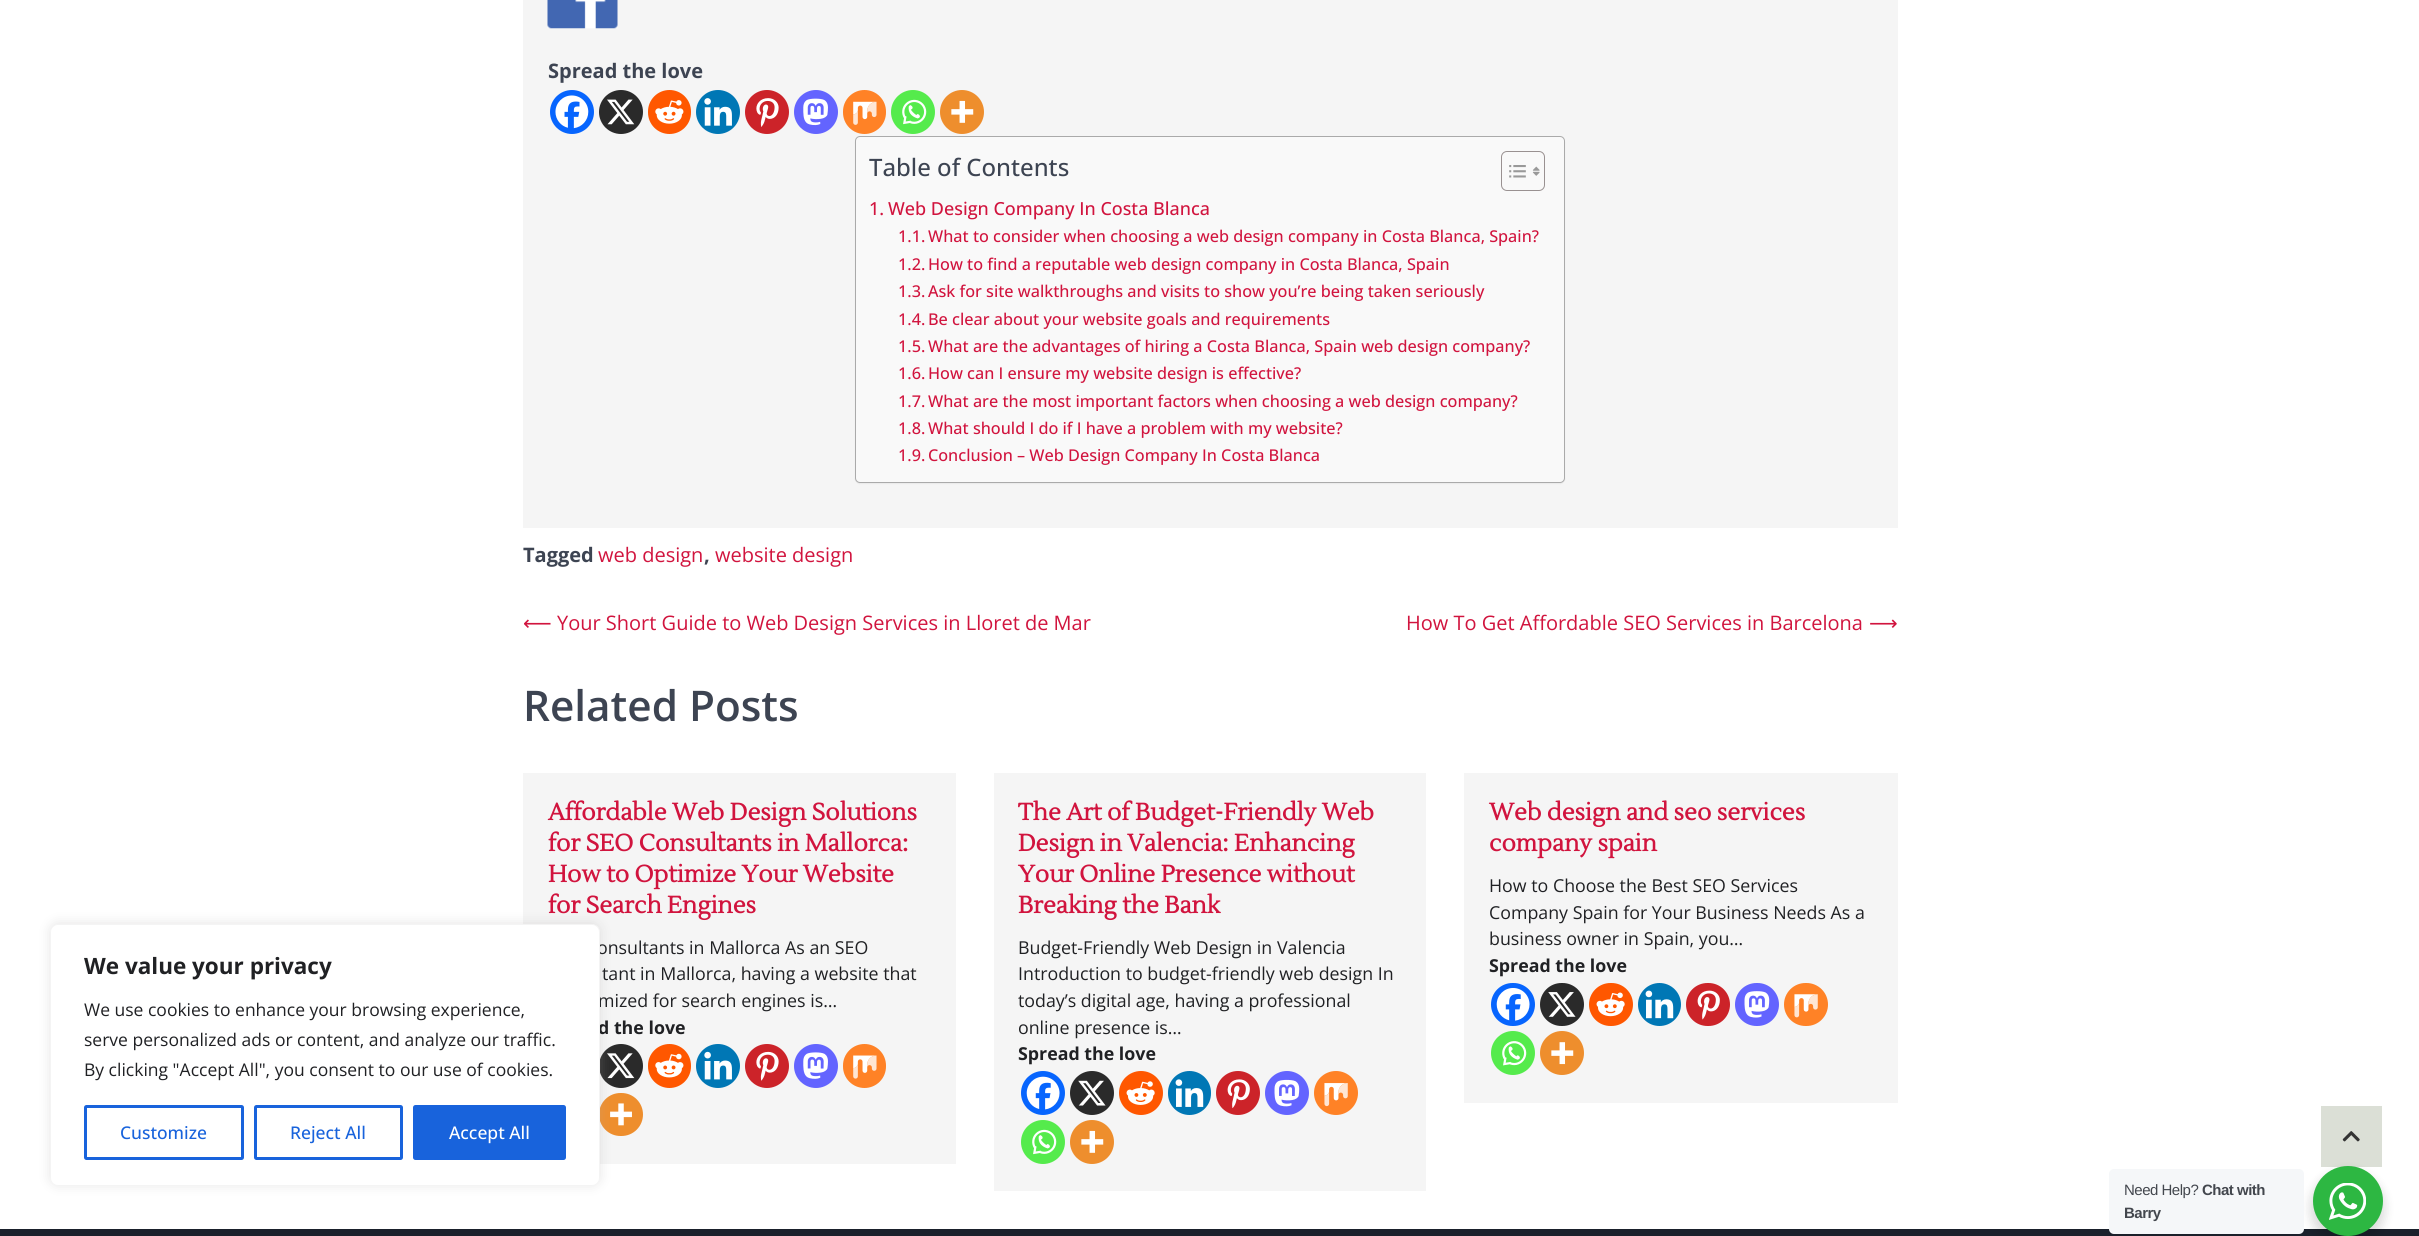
import math
import cairo

surface = cairo.ImageSurface(cairo.FORMAT_RGB24, 2419, 1236)
ctx = cairo.Context(surface)
options = cairo.FontOptions()
options.set_hint_metrics(cairo.HINT_METRICS_OFF)
options.set_hint_style(cairo.HINT_STYLE_NONE)
ctx.set_font_options(options)
ctx.set_miter_limit(4)


def set_color(code):
    ctx.set_source_rgb(*(v / 255 for v in bytes.fromhex(code[-6:])))


def draw_text(x, y, s, family, size, color, bold=False, italic=False):
    ctx.select_font_face(family, cairo.FONT_SLANT_ITALIC if italic else cairo.FONT_SLANT_NORMAL, cairo.FONT_WEIGHT_BOLD if bold else cairo.FONT_WEIGHT_NORMAL)
    ctx.set_font_size(size)
    set_color(color)
    ctx.move_to(x, y)
    ctx.show_text(s)


def draw_spaced(x, y, s, letter, word):
    ctx.move_to(x, y)
    for ch in s:
        ctx.show_text(ch)
        ctx.rel_move_to(letter + word * (ch == ' '), 0)


def fill_rect(x, y, w, h, color):
    set_color(color)
    ctx.rectangle(x, y, w, h)
    ctx.fill()


def rounded_rect(x, y, w, h, r):
    ctx.new_sub_path()
    for i, (u, v) in enumerate([(x + w - r, y + h - r), (x + r, y + h - r), (x + r, y + r), (x + w - r, y + r)]):
        ctx.arc(u, v, r, i * math.pi / 2, (i + 1) * math.pi / 2)
    ctx.close_path()


def draw_shadow(x, y, w, h, r, blur, alpha):
    ctx.push_group_with_content(cairo.CONTENT_ALPHA)
    ctx.set_operator(cairo.OPERATOR_SOURCE)
    for i in range(15, -16, -2):
        e = blur * i / 6
        if min(w, h) + 2 * e > 0:
            ctx.set_source_rgba(0, 0, 0, alpha * math.erfc((i - 1) / 8.5) / 2)
            rounded_rect(x - e, y - e, w + 2 * e, h + 2 * e, max(0, min(r + e + blur * .6, min(w, h) / 2 + e)))
            ctx.fill()
    ctx.mask(ctx.pop_group())


def draw_image(path, x, y, w, h):
    ctx.save()
    ctx.set_source_surface(cairo.ImageSurface.create_from_png(path), x, y)
    ctx.rectangle(x, y, w, h)
    ctx.fill()
    ctx.restore()


set_color("#ffffff")
ctx.paint()
fill_rect(523, 773, 433, 391, "#f5f5f5")
set_color("#2a2a2a")
ctx.arc(621, 1066, 22, 0, 2 * math.pi)
ctx.fill()
draw_image("assets/img13.png", 607, 1053, 28, 26)
set_color("#ee8e2d")
rounded_rect(599, 1093, 44, 43, 21.5)
ctx.fill()
draw_image("assets/img19.png", 610, 1103, 22, 23)
set_color("#acabab")
draw_shadow(50, 923, 550, 262, 8, 6, 0.3)
draw_text(597, 954, "onsultants in Mallorca As an SEO", "Open Sans", 17.8, "#202124")
draw_text(598, 1007, "mized for search engines is…", "Open Sans", 17.8, "#202124")
draw_text(598, 1034, "d the love", "Open Sans", 17.8, "#202124", bold=True)
set_color("#ffffff")
rounded_rect(50.5, 924.5, 549, 261, 7.5)
ctx.fill_preserve()
set_color("#f4f4f4")
ctx.set_line_width(1)
ctx.stroke()
draw_text(84, 974, "We value your privacy", "Open Sans", 22.5, "#202124", bold=True)
draw_text(84, 1016, "We use cookies to enhance your browsing experience,", "Open Sans", 17.5, "#202124")
draw_text(84, 1046, "serve personalized ads or content, and analyze our traffic.", "Open Sans", 17.5, "#202124")
draw_text(84, 1076, "By clicking \"Accept All\", you consent to our use of cookies.", "Open Sans", 17.5, "#202124")
rounded_rect(85.5, 1106.5, 157, 52, 1)
set_color("#1863dc")
ctx.set_line_width(3)
ctx.stroke()
draw_text(120, 1139, "Customize", "Open Sans Medium", 17.5, "#1863dc")
rounded_rect(255.5, 1106.5, 146, 52, 1)
ctx.stroke()
draw_text(290, 1139, "Reject All", "Open Sans Medium", 17.5, "#1863dc")
rounded_rect(414.5, 1106.5, 150, 52, 1)
ctx.fill_preserve()
ctx.stroke()
draw_text(449, 1139, "Accept All", "Open Sans Medium", 17.5, "#ffffff")
fill_rect(523, 0, 1375, 528, "#f5f5f5")
draw_image("assets/img1.png", 547, 0, 71, 29)
draw_text(548, 78, "Spread the love", "Open Sans", 20, "#3d4452", bold=True)
set_color("#0765fe")
ctx.new_path()
ctx.arc(572, 112, 22, 0, 2 * math.pi)
ctx.fill()
draw_image("assets/img2.png", 555, 95, 34, 34)
set_color("#2a2a2a")
ctx.arc(621, 112, 22, 0, 2 * math.pi)
ctx.fill()
draw_image("assets/img3.png", 607, 99, 28, 26)
set_color("#ff5700")
rounded_rect(648, 90, 43, 44, 21.5)
ctx.fill()
draw_image("assets/img4.png", 655, 100, 29, 24)
set_color("#0077b5")
ctx.arc(718, 112, 22, 0, 2 * math.pi)
ctx.fill()
draw_image("assets/img5.png", 704, 98, 28, 28)
set_color("#cc2329")
ctx.arc(767, 112, 22, 0, 2 * math.pi)
ctx.fill()
draw_image("assets/img6.png", 756, 98, 23, 29)
set_color("#6364ff")
ctx.arc(816, 112, 22, 0, 2 * math.pi)
ctx.fill()
draw_image("assets/img7.png", 803, 98, 25, 28)
set_color("#ff8226")
rounded_rect(843, 90, 43, 44, 21.5)
ctx.fill()
draw_image("assets/img8.png", 853, 101, 24, 24)
set_color("#55eb4c")
ctx.arc(913, 112, 22, 0, 2 * math.pi)
ctx.fill()
draw_image("assets/img9.png", 902, 99, 25, 26)
set_color("#ee8e2d")
ctx.arc(962, 112, 22, 0, 2 * math.pi)
ctx.fill()
draw_image("assets/img10.png", 951, 100, 23, 23)
set_color("#000000")
draw_shadow(855, 138, 710, 346, 5, 0.5, 0.05)
set_color("#f9f9f9")
rounded_rect(855.5, 136.5, 709, 346, 4.5)
ctx.fill_preserve()
set_color("#aaaaaa")
ctx.set_line_width(1)
ctx.stroke()
draw_text(869, 176, "Table of Contents", "Open Sans Medium", 24, "#3d4452")
rounded_rect(1501.5, 151.5, 43, 39, 5.5)
set_color("#999191")
ctx.stroke()
draw_image("assets/img11.png", 1509, 165, 17, 13)
draw_image("assets/img12.png", 1532, 166, 8, 10)
draw_text(869, 215, "1.", "Open Sans Medium", 18, "#d1143e")
draw_text(888, 215, "Web Design Company In Costa Blanca", "Open Sans Medium", 18, "#d1143e")
draw_text(898, 242, "1.1.", "Open Sans Medium", 16.25, "#d1143e")
draw_text(928, 242, "What to consider when choosing a web design company in Costa Blanca, Spain?", "Open Sans Medium", 16.25, "#d1143e")
draw_text(898, 270, "1.2.", "Open Sans Medium", 16.25, "#d1143e")
draw_text(928, 270, "How to find a reputable web design company in Costa Blanca, Spain", "Open Sans Medium", 16.25, "#d1143e")
draw_text(898, 297, "1.3.", "Open Sans Medium", 16.25, "#d1143e")
draw_text(928, 297, "Ask for site walkthroughs and visits to show you’re being taken seriously", "Open Sans Medium", 16.25, "#d1143e")
draw_text(898, 325, "1.4.", "Open Sans Medium", 16.25, "#d1143e")
draw_text(928, 325, "Be clear about your website goals and requirements", "Open Sans Medium", 16.25, "#d1143e")
draw_text(898, 352, "1.5.", "Open Sans Medium", 16.25, "#d1143e")
draw_text(928, 352, "What are the advantages of hiring a Costa Blanca, Spain web design company?", "Open Sans Medium", 16.25, "#d1143e")
draw_text(898, 379, "1.6.", "Open Sans Medium", 16.25, "#d1143e")
draw_text(928, 379, "How can I ensure my website design is effective?", "Open Sans Medium", 16.25, "#d1143e")
draw_text(898, 407, "1.7.", "Open Sans Medium", 16.25, "#d1143e")
draw_text(928, 407, "What are the most important factors when choosing a web design company?", "Open Sans Medium", 16.25, "#d1143e")
draw_text(898, 434, "1.8.", "Open Sans Medium", 16.25, "#d1143e")
draw_text(928, 434, "What should I do if I have a problem with my website?", "Open Sans Medium", 16.25, "#d1143e")
draw_text(898, 461, "1.9.", "Open Sans Medium", 16.25, "#d1143e")
draw_text(928, 461, "Conclusion – Web Design Company In Costa Blanca", "Open Sans Medium", 16.25, "#d1143e")
draw_text(523, 562, "Tagged", "Open Sans", 20, "#3d4452", bold=True)
draw_text(598, 562, "web design", "Open Sans", 20, "#d1143e")
draw_text(704, 562, ",", "Open Sans", 20, "#3d4452", bold=True)
draw_text(715, 562, "website design", "Open Sans", 20, "#d1143e")
draw_text(523, 630, "⟵", "DejaVu Sans", 20, "#d1143e")
draw_text(557, 630, "Your Short Guide to Web Design Services in Lloret de Mar", "Open Sans", 20, "#d1143e")
draw_text(1406, 630, "How To Get Affordable SEO Services in Barcelona", "Open Sans", 20, "#d1143e")
draw_text(1869, 630, "⟶", "DejaVu Sans", 20, "#d1143e")
draw_text(523, 721, "Related Posts", "Open Sans SemiBold", 42.25, "#3d4452")
draw_text(548, 820, "Affordable Web Design Solutions", "Lustria", 23.75, "#d1143e", bold=True)
draw_text(548, 851, "for SEO Consultants in Mallorca:", "Lustria", 23.75, "#d1143e", bold=True)
draw_text(548, 882, "How to Optimize Your Website", "Lustria", 23.75, "#d1143e", bold=True)
draw_text(548, 913, "for Search Engines", "Lustria", 23.75, "#d1143e", bold=True)
draw_text(602, 980, "tant in Mallorca, having a website that", "Open Sans", 17.8, "#202124")
set_color("#ff5700")
rounded_rect(648, 1044, 43, 44, 21.5)
ctx.fill()
draw_image("assets/img14.png", 655, 1053, 29, 25)
set_color("#0077b5")
ctx.arc(718, 1066, 22, 0, 2 * math.pi)
ctx.fill()
draw_image("assets/img15.png", 704, 1051, 28, 29)
set_color("#cc2329")
ctx.arc(767, 1066, 22, 0, 2 * math.pi)
ctx.fill()
draw_image("assets/img16.png", 756, 1051, 23, 30)
set_color("#6364ff")
ctx.arc(816, 1066, 22, 0, 2 * math.pi)
ctx.fill()
draw_image("assets/img17.png", 803, 1052, 25, 27)
set_color("#ff8226")
rounded_rect(843, 1044, 43, 44, 21.5)
ctx.fill()
draw_image("assets/img18.png", 853, 1055, 24, 24)
fill_rect(994, 773, 432, 418, "#f5f5f5")
draw_text(1018, 820, "The Art of Budget-Friendly Web", "Lustria", 23.75, "#d1143e", bold=True)
draw_text(1018, 851, "Design in Valencia: Enhancing", "Lustria", 23.75, "#d1143e", bold=True)
draw_text(1018, 882, "Your Online Presence without", "Lustria", 23.75, "#d1143e", bold=True)
draw_text(1018, 913, "Breaking the Bank", "Lustria", 23.75, "#d1143e", bold=True)
draw_text(1018, 954, "Budget-Friendly Web Design in Valencia", "Open Sans", 17.8, "#202124")
draw_text(1018, 980, "Introduction to budget-friendly web design In", "Open Sans", 17.8, "#202124")
draw_text(1018, 1007, "today’s digital age, having a professional", "Open Sans", 17.8, "#202124")
draw_text(1018, 1034, "online presence is…", "Open Sans", 17.8, "#202124")
draw_text(1018, 1060, "Spread the love", "Open Sans", 17.8, "#202124", bold=True)
set_color("#0765fe")
ctx.new_path()
ctx.arc(1043, 1093, 22, 0, 2 * math.pi)
ctx.fill()
draw_image("assets/img20.png", 1026, 1076, 34, 34)
set_color("#2a2a2a")
ctx.arc(1092, 1093, 22, 0, 2 * math.pi)
ctx.fill()
draw_image("assets/img21.png", 1078, 1080, 28, 26)
set_color("#ff5700")
ctx.arc(1141, 1093, 22, 0, 2 * math.pi)
ctx.fill()
draw_image("assets/img22.png", 1126, 1081, 29, 24)
set_color("#0077b5")
rounded_rect(1168, 1071, 43, 44, 21.5)
ctx.fill()
draw_image("assets/img23.png", 1175, 1079, 29, 28)
set_color("#cc2329")
ctx.arc(1238, 1093, 22, 0, 2 * math.pi)
ctx.fill()
draw_image("assets/img24.png", 1227, 1079, 23, 30)
set_color("#6364ff")
ctx.arc(1287, 1093, 22, 0, 2 * math.pi)
ctx.fill()
draw_image("assets/img25.png", 1274, 1079, 26, 28)
set_color("#ff8226")
ctx.arc(1336, 1093, 22, 0, 2 * math.pi)
ctx.fill()
draw_image("assets/img26.png", 1324, 1083, 24, 24)
set_color("#55eb4c")
ctx.arc(1043, 1142, 22, 0, 2 * math.pi)
ctx.fill()
draw_image("assets/img9.png", 1032, 1129, 25, 26)
set_color("#ee8e2d")
ctx.arc(1092, 1142, 22, 0, 2 * math.pi)
ctx.fill()
draw_image("assets/img10.png", 1081, 1130, 23, 23)
fill_rect(1464, 773, 434, 330, "#f5f5f5")
draw_text(1489, 820, "Web design and seo services", "Lustria", 23.75, "#d1143e", bold=True)
draw_text(1489, 851, "company spain", "Lustria", 23.75, "#d1143e", bold=True)
draw_text(1489, 892, "How to Choose the Best SEO Services", "Open Sans", 17.8, "#202124")
draw_text(1489, 919, "Company Spain for Your Business Needs As a", "Open Sans", 17.8, "#202124")
draw_text(1489, 945, "business owner in Spain, you…", "Open Sans", 17.8, "#202124")
draw_text(1489, 972, "Spread the love", "Open Sans", 17.8, "#202124", bold=True)
set_color("#0765fe")
rounded_rect(1491, 983, 44, 43, 21.5)
ctx.fill()
draw_image("assets/img27.png", 1496, 988, 34, 33)
set_color("#2a2a2a")
rounded_rect(1540, 983, 44, 43, 21.5)
ctx.fill()
draw_image("assets/img28.png", 1548, 992, 28, 25)
set_color("#ff5700")
rounded_rect(1589, 983, 44, 43, 21.5)
ctx.fill()
draw_image("assets/img29.png", 1596, 992, 29, 25)
set_color("#0077b5")
ctx.arc(1659.5, 1004.5, 21.5, 0, 2 * math.pi)
ctx.fill()
draw_image("assets/img30.png", 1645, 990, 29, 29)
set_color("#cc2329")
rounded_rect(1686, 983, 44, 43, 21.5)
ctx.fill()
draw_image("assets/img31.png", 1697, 990, 23, 30)
set_color("#6364ff")
rounded_rect(1735, 983, 44, 43, 21.5)
ctx.fill()
draw_image("assets/img32.png", 1744, 991, 26, 27)
set_color("#ff8226")
rounded_rect(1784, 983, 44, 43, 21.5)
ctx.fill()
draw_image("assets/img33.png", 1794, 994, 24, 24)
set_color("#55eb4c")
ctx.arc(1513, 1053, 22, 0, 2 * math.pi)
ctx.fill()
draw_image("assets/img34.png", 1502, 1041, 25, 25)
set_color("#ee8e2d")
ctx.arc(1562, 1053, 22, 0, 2 * math.pi)
ctx.fill()
draw_image("assets/img35.png", 1551, 1042, 23, 23)
fill_rect(2321, 1106, 61, 61, "#dbdfd6")
draw_image("assets/img36.png", 2342, 1131, 18, 11)
fill_rect(0, 1229, 2419, 7, "#1a202b")
set_color("#000000")
draw_shadow(2310, 1171, 75, 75, 37.5, 5, 0.14)
set_color("#f5f7f9")
rounded_rect(2109, 1169, 195, 65, 5)
ctx.fill()
ctx.select_font_face("Liberation Sans")
ctx.set_font_size(15)
set_color("#43474e")
draw_spaced(2124, 1195, "Need Help?", -0.5, 0)
ctx.select_font_face("Liberation Sans", cairo.FONT_SLANT_NORMAL, cairo.FONT_WEIGHT_BOLD)
draw_spaced(2202, 1195, "Chat with", -0.5, 0)
draw_spaced(2124, 1218, "Barry", -0.5, 0)
set_color("#2db742")
ctx.new_path()
ctx.arc(2348, 1201, 35, 0, 2 * math.pi)
ctx.fill()
draw_image("assets/img37.png", 2329, 1183, 37, 37)
surface.write_to_png("output.png")
